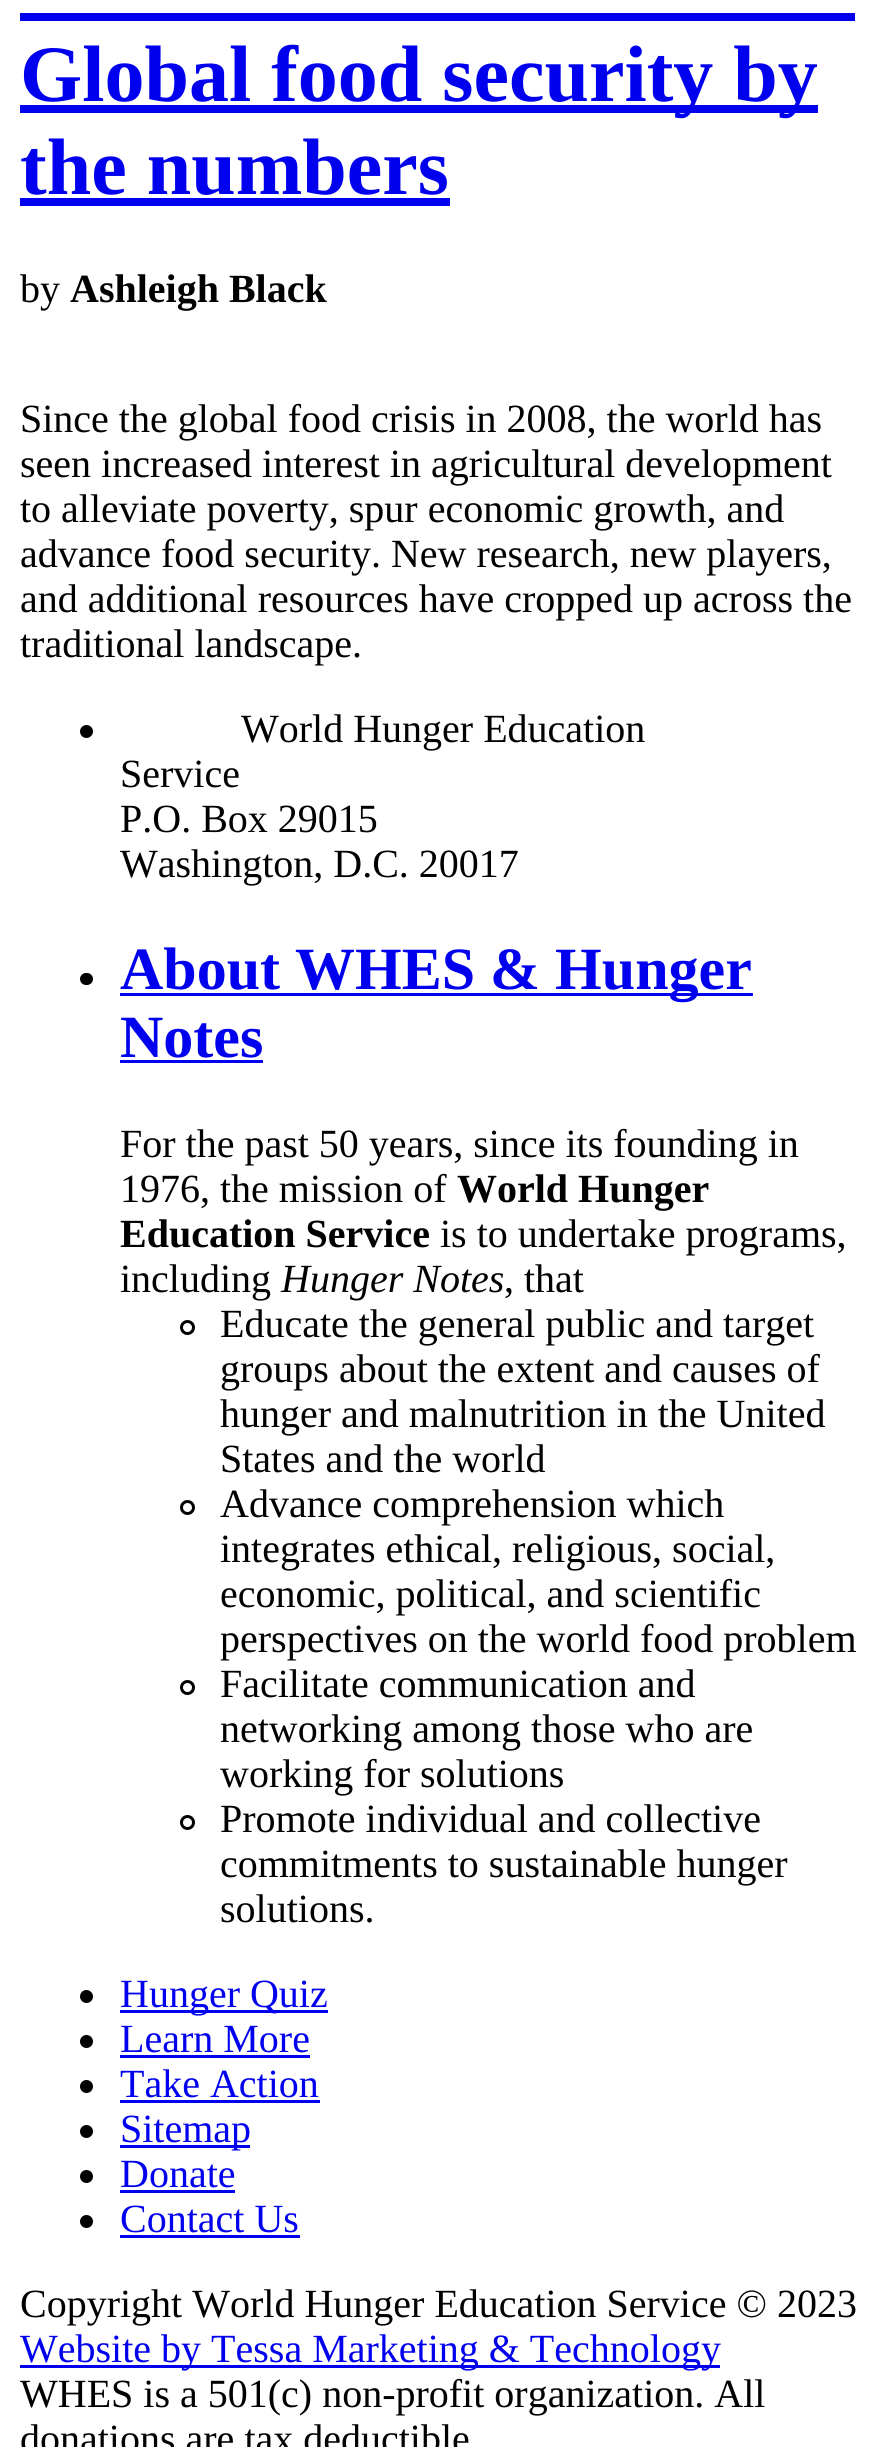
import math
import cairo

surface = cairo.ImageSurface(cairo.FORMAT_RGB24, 888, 2447)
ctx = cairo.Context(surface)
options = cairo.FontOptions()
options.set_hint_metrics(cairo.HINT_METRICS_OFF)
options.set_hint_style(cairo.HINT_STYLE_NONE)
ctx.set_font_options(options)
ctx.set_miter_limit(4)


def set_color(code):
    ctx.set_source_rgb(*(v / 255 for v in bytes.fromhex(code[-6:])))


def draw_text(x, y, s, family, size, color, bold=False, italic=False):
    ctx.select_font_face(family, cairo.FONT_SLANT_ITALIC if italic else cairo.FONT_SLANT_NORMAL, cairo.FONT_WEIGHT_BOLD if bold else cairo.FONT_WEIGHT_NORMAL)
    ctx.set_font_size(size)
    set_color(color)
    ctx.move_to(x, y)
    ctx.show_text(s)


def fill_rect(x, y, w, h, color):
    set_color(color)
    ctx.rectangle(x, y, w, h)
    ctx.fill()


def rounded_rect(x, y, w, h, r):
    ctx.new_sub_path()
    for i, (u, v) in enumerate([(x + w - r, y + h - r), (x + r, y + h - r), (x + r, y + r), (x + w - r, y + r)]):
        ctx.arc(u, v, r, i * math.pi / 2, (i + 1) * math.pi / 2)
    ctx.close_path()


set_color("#ffffff")
ctx.paint()
fill_rect(20, 105, 798, 8, "#0000ee")
draw_text(20, 101, "Global food security by", "Liberation Serif", 80, "#0000ee", bold=True)
fill_rect(20, 13, 835, 8, "#0000ee")
draw_text(20, 194, "the numbers", "Liberation Serif", 80, "#0000ee", bold=True)
fill_rect(20, 198, 430, 8, "#0000ee")
draw_text(20, 302, "by", "Liberation Serif", 40, "#000000")
draw_text(70, 302, "Ashleigh Black", "Liberation Serif", 40, "#000000", bold=True)
draw_text(20, 432, "Since the global food crisis in 2008, the world has", "Liberation Serif", 40, "#000000")
draw_text(20, 477, "seen increased interest in agricultural development", "Liberation Serif", 40, "#000000")
draw_text(20, 522, "to alleviate poverty, spur economic growth, and", "Liberation Serif", 40, "#000000")
draw_text(20, 567, "advance food security. New research, new players,", "Liberation Serif", 40, "#000000")
draw_text(20, 612, "and additional resources have cropped up across the", "Liberation Serif", 40, "#000000")
draw_text(20, 657, "traditional landscape.", "Liberation Serif", 40, "#000000")
ctx.new_path()
ctx.arc(86.5, 731.5, 6.5, 0, 2 * math.pi)
ctx.fill()
draw_text(241, 742, "World Hunger Education", "Liberation Serif", 40, "#000000")
draw_text(120, 787, "Service", "Liberation Serif", 40, "#000000")
draw_text(120, 832, "P.O. Box 29015", "Liberation Serif", 40, "#000000")
draw_text(120, 877, "Washington, D.C. 20017", "Liberation Serif", 40, "#000000")
rounded_rect(80, 973, 13, 12, 6)
ctx.fill()
fill_rect(120, 993, 633, 3, "#0000ee")
draw_text(120, 989, "About WHES & Hunger", "Liberation Serif", 60, "#0000ee", bold=True)
draw_text(120, 1057, "Notes", "Liberation Serif", 60, "#0000ee", bold=True)
fill_rect(120, 1060, 143, 3, "#0000ee")
draw_text(120, 1157, "For the past 50 years, since its founding in", "Liberation Serif", 40, "#000000")
draw_text(120, 1202, "1976, the mission of", "Liberation Serif", 40, "#000000")
draw_text(457, 1202, "World Hunger", "Liberation Serif", 40, "#000000", bold=True)
draw_text(120, 1247, "Education Service", "Liberation Serif", 40, "#000000", bold=True)
draw_text(440, 1247, "is to undertake programs,", "Liberation Serif", 40, "#000000")
draw_text(120, 1292, "including", "Liberation Serif", 40, "#000000")
draw_text(281, 1292, "Hunger Notes", "Liberation Serif", 40, "#000000", italic=True)
draw_text(504, 1292, ", that", "Liberation Serif", 40, "#000000")
ctx.new_path()
ctx.arc(187.5, 1327.5, 6, 0, 2 * math.pi)
ctx.set_line_width(3)
ctx.stroke()
draw_text(220, 1337, "Educate the general public and target", "Liberation Serif", 40, "#000000")
draw_text(220, 1382, "groups about the extent and causes of", "Liberation Serif", 40, "#000000")
draw_text(220, 1427, "hunger and malnutrition in the United", "Liberation Serif", 40, "#000000")
draw_text(220, 1472, "States and the world", "Liberation Serif", 40, "#000000")
ctx.new_path()
ctx.arc(187.5, 1507.5, 6, 0, 2 * math.pi)
ctx.stroke()
draw_text(220, 1517, "Advance comprehension which", "Liberation Serif", 40, "#000000")
draw_text(220, 1562, "integrates ethical, religious, social,", "Liberation Serif", 40, "#000000")
draw_text(220, 1607, "economic, political, and scientific", "Liberation Serif", 40, "#000000")
draw_text(220, 1652, "perspectives on the world food problem", "Liberation Serif", 40, "#000000")
ctx.new_path()
ctx.arc(187.5, 1687.5, 6, 0, 2 * math.pi)
ctx.stroke()
draw_text(220, 1697, "Facilitate communication and", "Liberation Serif", 40, "#000000")
draw_text(220, 1742, "networking among those who are", "Liberation Serif", 40, "#000000")
draw_text(220, 1787, "working for solutions", "Liberation Serif", 40, "#000000")
ctx.new_path()
ctx.arc(187.5, 1822.5, 6, 0, 2 * math.pi)
ctx.stroke()
draw_text(220, 1832, "Promote individual and collective", "Liberation Serif", 40, "#000000")
draw_text(220, 1877, "commitments to sustainable hunger", "Liberation Serif", 40, "#000000")
draw_text(220, 1922, "solutions.", "Liberation Serif", 40, "#000000")
ctx.new_path()
ctx.arc(86.5, 1996.5, 6.5, 0, 2 * math.pi)
ctx.fill()
fill_rect(120, 2010, 208, 3, "#0000ee")
draw_text(120, 2007, "Hunger Quiz", "Liberation Serif", 40, "#0000ee")
set_color("#000000")
ctx.new_path()
ctx.arc(86.5, 2041.5, 6.5, 0, 2 * math.pi)
ctx.fill()
draw_text(120, 2052, "Learn More", "Liberation Serif", 40, "#0000ee")
fill_rect(120, 2055, 190, 3, "#0000ee")
set_color("#000000")
ctx.new_path()
ctx.arc(86.5, 2086.5, 6.5, 0, 2 * math.pi)
ctx.fill()
draw_text(120, 2097, "Take Action", "Liberation Serif", 40, "#0000ee")
fill_rect(120, 2100, 200, 3, "#0000ee")
set_color("#000000")
ctx.new_path()
ctx.arc(86.5, 2131.5, 6.5, 0, 2 * math.pi)
ctx.fill()
fill_rect(120, 2145, 130, 3, "#0000ee")
draw_text(120, 2142, "Sitemap", "Liberation Serif", 40, "#0000ee")
set_color("#000000")
ctx.new_path()
ctx.arc(86.5, 2176.5, 6.5, 0, 2 * math.pi)
ctx.fill()
draw_text(120, 2187, "Donate", "Liberation Serif", 40, "#0000ee")
fill_rect(120, 2190, 115, 3, "#0000ee")
set_color("#000000")
ctx.new_path()
ctx.arc(86.5, 2221.5, 6.5, 0, 2 * math.pi)
ctx.fill()
draw_text(120, 2232, "Contact Us", "Liberation Serif", 40, "#0000ee")
fill_rect(120, 2235, 180, 3, "#0000ee")
draw_text(20, 2317, "Copyright World Hunger Education Service © 2023", "Liberation Serif", 40, "#000000")
fill_rect(20, 2365, 700, 3, "#0000ee")
draw_text(20, 2362, "Website by Tessa Marketing & Technology", "Liberation Serif", 40, "#0000ee")
draw_text(20, 2407, "WHES is a 501(c) non-profit organization. All", "Liberation Serif", 40, "#000000")
draw_text(20, 2452, "donations are tax deductible", "Liberation Serif", 40, "#000000")
surface.write_to_png("output.png")
